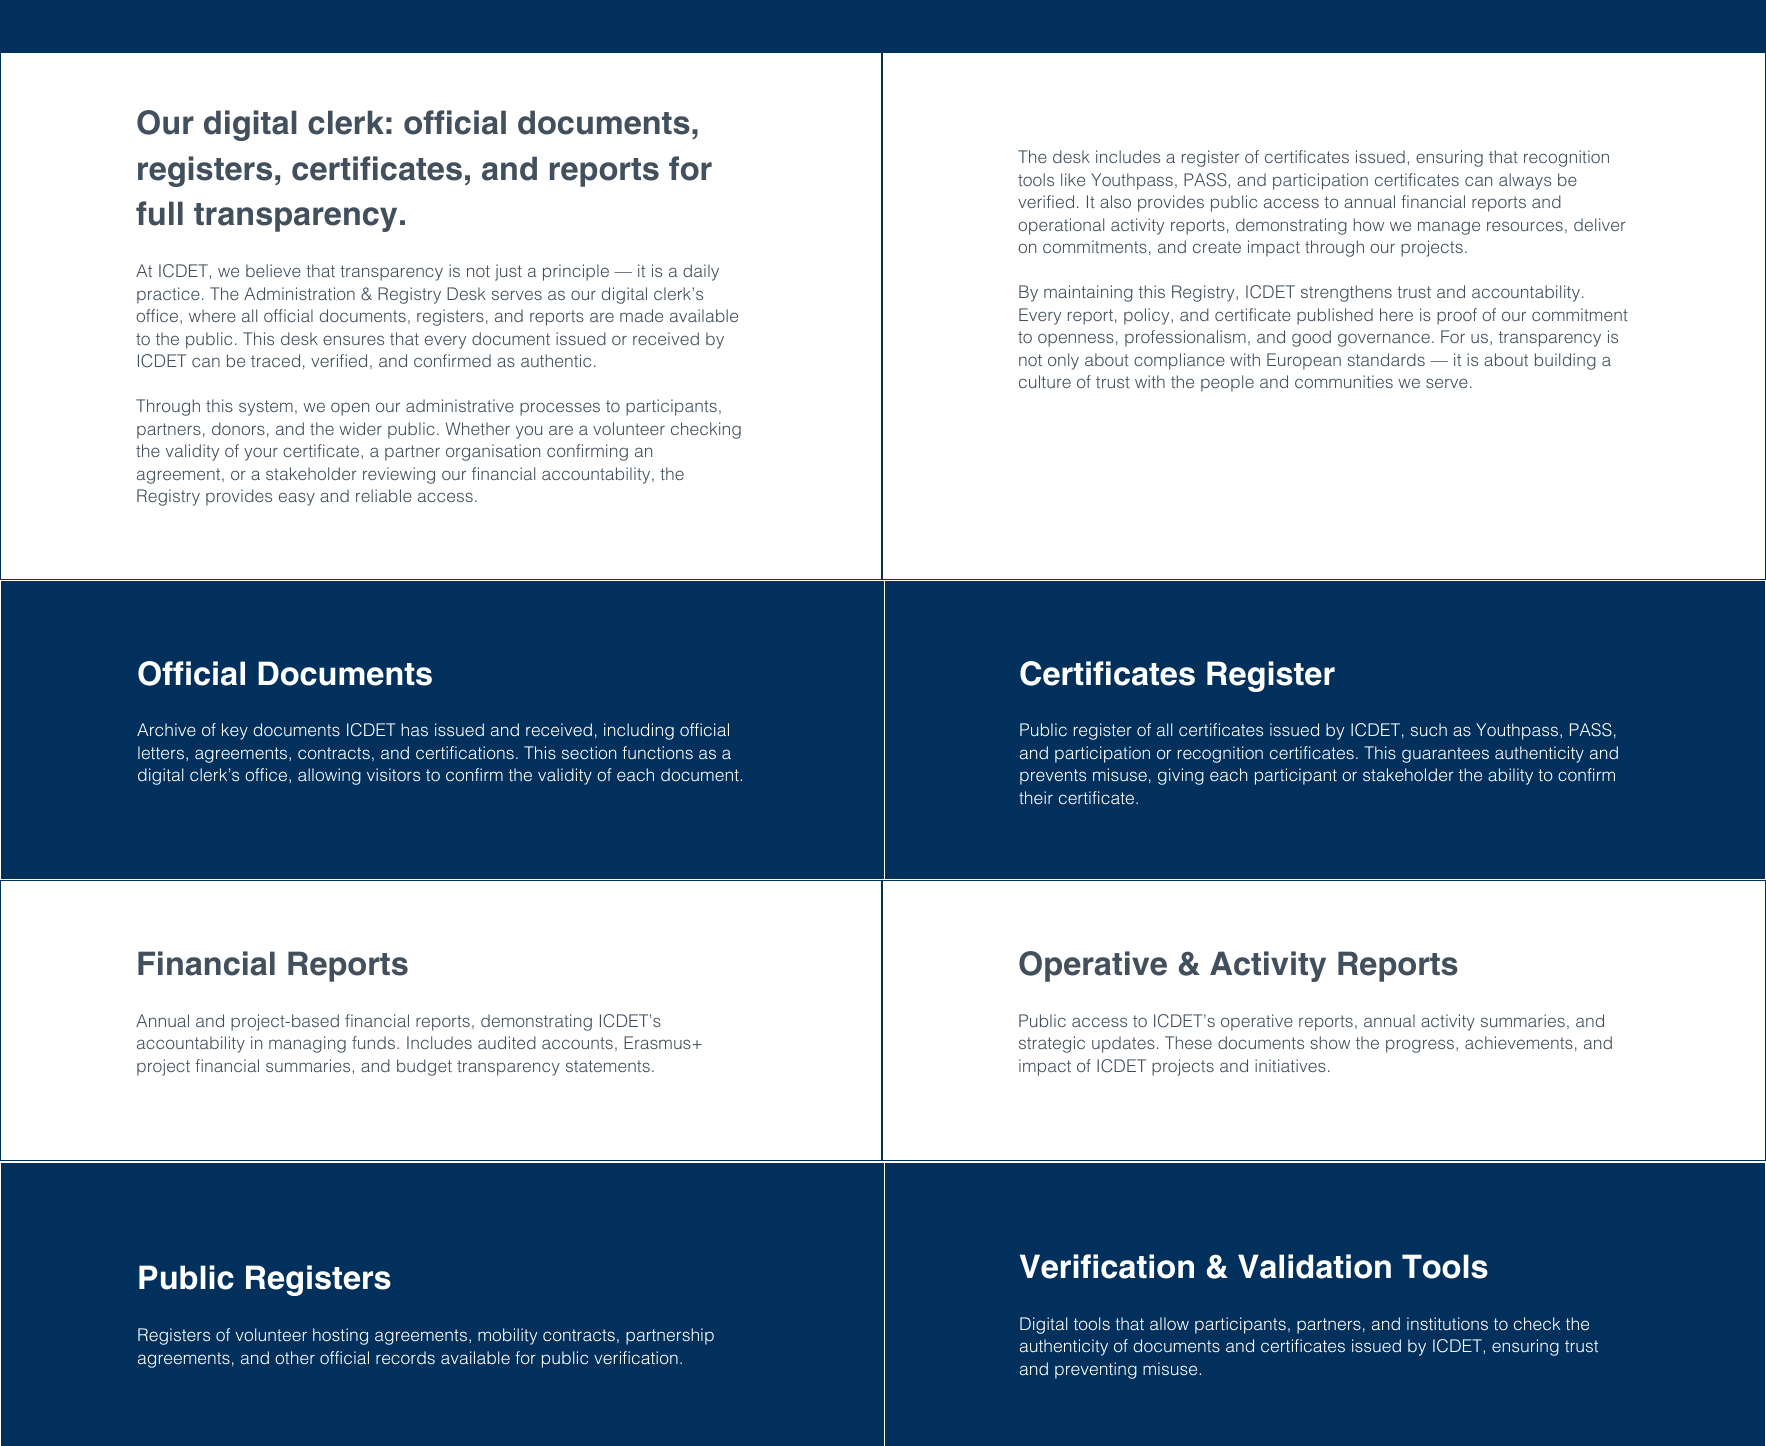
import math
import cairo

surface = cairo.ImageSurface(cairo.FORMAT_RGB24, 1766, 1446)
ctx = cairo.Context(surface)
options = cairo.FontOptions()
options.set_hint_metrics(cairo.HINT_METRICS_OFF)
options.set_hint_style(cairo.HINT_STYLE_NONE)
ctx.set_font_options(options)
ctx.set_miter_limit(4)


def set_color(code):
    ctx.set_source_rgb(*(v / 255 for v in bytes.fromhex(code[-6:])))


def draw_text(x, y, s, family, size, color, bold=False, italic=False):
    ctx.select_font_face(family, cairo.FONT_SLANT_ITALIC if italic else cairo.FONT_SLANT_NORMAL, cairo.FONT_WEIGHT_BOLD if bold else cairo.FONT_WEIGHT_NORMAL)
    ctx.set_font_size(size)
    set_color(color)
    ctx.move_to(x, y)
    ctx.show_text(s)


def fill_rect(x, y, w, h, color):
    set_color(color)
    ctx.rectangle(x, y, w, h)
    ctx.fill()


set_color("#ffffff")
ctx.paint()
fill_rect(0, 0, 1766, 580, "#00305b")
fill_rect(1, 53, 880, 526, "#ffffff")
draw_text(136, 134, "Our digital clerk: official documents,", "helvetica", 32.5, "#42505d", bold=True)
draw_text(136, 180, "registers, certificates, and reports for", "helvetica", 32.5, "#42505d", bold=True)
draw_text(136, 225, "full transparency.", "helvetica", 32.5, "#42505d", bold=True)
draw_text(136, 277, "At ICDET, we believe that transparency is not just a principle — it is a daily", "helvetica Light", 17.5, "#42505d")
draw_text(136, 300, "practice. The Administration & Registry Desk serves as our digital clerk’s", "helvetica Light", 17.5, "#42505d")
draw_text(136, 322, "office, where all official documents, registers, and reports are made available", "helvetica Light", 17.5, "#42505d")
draw_text(136, 345, "to the public. This desk ensures that every document issued or received by", "helvetica Light", 17.5, "#42505d")
draw_text(136, 367, "ICDET can be traced, verified, and confirmed as authentic.", "helvetica Light", 17.5, "#42505d")
draw_text(136, 412, "Through this system, we open our administrative processes to participants,", "helvetica Light", 17.5, "#42505d")
draw_text(136, 435, "partners, donors, and the wider public. Whether you are a volunteer checking", "helvetica Light", 17.5, "#42505d")
draw_text(136, 457, "the validity of your certificate, a partner organisation confirming an", "helvetica Light", 17.5, "#42505d")
draw_text(136, 480, "agreement, or a stakeholder reviewing our financial accountability, the", "helvetica Light", 17.5, "#42505d")
draw_text(136, 502, "Registry provides easy and reliable access.", "helvetica Light", 17.5, "#42505d")
fill_rect(883, 53, 882, 526, "#ffffff")
draw_text(1018, 163, "The desk includes a register of certificates issued, ensuring that recognition", "helvetica Light", 17.5, "#42505d")
draw_text(1018, 186, "tools like Youthpass, PASS, and participation certificates can always be", "helvetica Light", 17.5, "#42505d")
draw_text(1018, 208, "verified. It also provides public access to annual financial reports and", "helvetica Light", 17.5, "#42505d")
draw_text(1018, 231, "operational activity reports, demonstrating how we manage resources, deliver", "helvetica Light", 17.5, "#42505d")
draw_text(1018, 253, "on commitments, and create impact through our projects.", "helvetica Light", 17.5, "#42505d")
draw_text(1018, 298, "By maintaining this Registry, ICDET strengthens trust and accountability.", "helvetica Light", 17.5, "#42505d")
draw_text(1018, 321, "Every report, policy, and certificate published here is proof of our commitment", "helvetica Light", 17.5, "#42505d")
draw_text(1018, 343, "to openness, professionalism, and good governance. For us, transparency is", "helvetica Light", 17.5, "#42505d")
draw_text(1018, 366, "not only about compliance with European standards — it is about building a", "helvetica Light", 17.5, "#42505d")
draw_text(1018, 388, "culture of trust with the people and communities we serve.", "helvetica Light", 17.5, "#42505d")
fill_rect(1, 581, 883, 298, "#00305b")
draw_text(137, 685, "Official Documents", "helvetica", 32.5, "#ffffff", bold=True)
draw_text(137, 736, "Archive of key documents ICDET has issued and received, including official", "helvetica Light", 17.5, "#ffffff")
draw_text(137, 759, "letters, agreements, contracts, and certifications. This section functions as a", "helvetica Light", 17.5, "#ffffff")
draw_text(137, 781, "digital clerk’s office, allowing visitors to confirm the validity of each document.", "helvetica Light", 17.5, "#ffffff")
fill_rect(885, 581, 880, 298, "#00305b")
draw_text(1019, 685, "Certificates Register", "helvetica", 32.5, "#ffffff", bold=True)
draw_text(1019, 736, "Public register of all certificates issued by ICDET, such as Youthpass, PASS,", "helvetica Light", 17.5, "#ffffff")
draw_text(1019, 759, "and participation or recognition certificates. This guarantees authenticity and", "helvetica Light", 17.5, "#ffffff")
draw_text(1019, 781, "prevents misuse, giving each participant or stakeholder the ability to confirm", "helvetica Light", 17.5, "#ffffff")
draw_text(1019, 804, "their certificate.", "helvetica Light", 17.5, "#ffffff")
fill_rect(0, 880, 1766, 281, "#00305b")
fill_rect(1, 881, 880, 279, "#ffffff")
draw_text(136, 975, "Financial Reports", "helvetica", 32.5, "#42505d", bold=True)
draw_text(136, 1027, "Annual and project-based financial reports, demonstrating ICDET’s", "helvetica Light", 17.5, "#42505d")
draw_text(136, 1049, "accountability in managing funds. Includes audited accounts, Erasmus+", "helvetica Light", 17.5, "#42505d")
draw_text(136, 1072, "project financial summaries, and budget transparency statements.", "helvetica Light", 17.5, "#42505d")
fill_rect(883, 881, 882, 279, "#ffffff")
draw_text(1018, 975, "Operative & Activity Reports", "helvetica", 32.5, "#42505d", bold=True)
draw_text(1018, 1027, "Public access to ICDET’s operative reports, annual activity summaries, and", "helvetica Light", 17.5, "#42505d")
draw_text(1018, 1049, "strategic updates. These documents show the progress, achievements, and", "helvetica Light", 17.5, "#42505d")
draw_text(1018, 1072, "impact of ICDET projects and initiatives.", "helvetica Light", 17.5, "#42505d")
fill_rect(1, 1163, 883, 283, "#00305b")
draw_text(137, 1289, "Public Registers", "helvetica", 32.5, "#ffffff", bold=True)
draw_text(137, 1341, "Registers of volunteer hosting agreements, mobility contracts, partnership", "helvetica Light", 17.5, "#ffffff")
draw_text(137, 1364, "agreements, and other official records available for public verification.", "helvetica Light", 17.5, "#ffffff")
fill_rect(885, 1163, 880, 283, "#00305b")
draw_text(1019, 1278, "Verification & Validation Tools", "helvetica", 32.5, "#ffffff", bold=True)
draw_text(1019, 1330, "Digital tools that allow participants, partners, and institutions to check the", "helvetica Light", 17.5, "#ffffff")
draw_text(1019, 1352, "authenticity of documents and certificates issued by ICDET, ensuring trust", "helvetica Light", 17.5, "#ffffff")
draw_text(1019, 1375, "and preventing misuse.", "helvetica Light", 17.5, "#ffffff")
surface.write_to_png("output.png")
